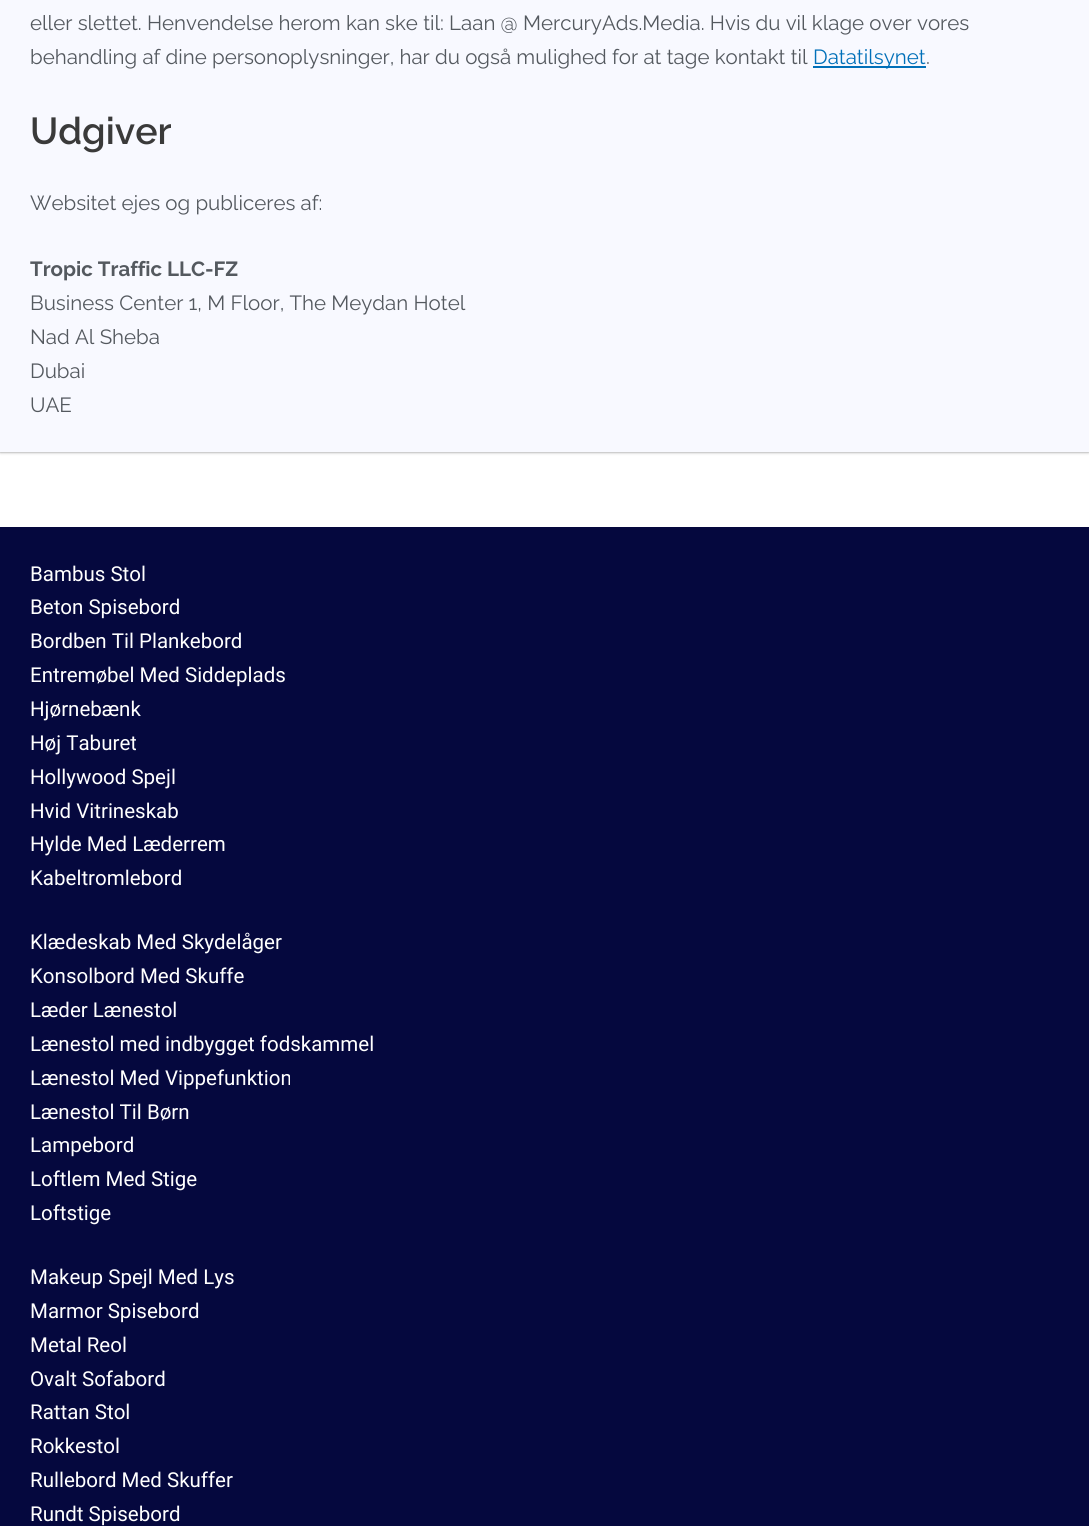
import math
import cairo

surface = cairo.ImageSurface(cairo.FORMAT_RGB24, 1089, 1526)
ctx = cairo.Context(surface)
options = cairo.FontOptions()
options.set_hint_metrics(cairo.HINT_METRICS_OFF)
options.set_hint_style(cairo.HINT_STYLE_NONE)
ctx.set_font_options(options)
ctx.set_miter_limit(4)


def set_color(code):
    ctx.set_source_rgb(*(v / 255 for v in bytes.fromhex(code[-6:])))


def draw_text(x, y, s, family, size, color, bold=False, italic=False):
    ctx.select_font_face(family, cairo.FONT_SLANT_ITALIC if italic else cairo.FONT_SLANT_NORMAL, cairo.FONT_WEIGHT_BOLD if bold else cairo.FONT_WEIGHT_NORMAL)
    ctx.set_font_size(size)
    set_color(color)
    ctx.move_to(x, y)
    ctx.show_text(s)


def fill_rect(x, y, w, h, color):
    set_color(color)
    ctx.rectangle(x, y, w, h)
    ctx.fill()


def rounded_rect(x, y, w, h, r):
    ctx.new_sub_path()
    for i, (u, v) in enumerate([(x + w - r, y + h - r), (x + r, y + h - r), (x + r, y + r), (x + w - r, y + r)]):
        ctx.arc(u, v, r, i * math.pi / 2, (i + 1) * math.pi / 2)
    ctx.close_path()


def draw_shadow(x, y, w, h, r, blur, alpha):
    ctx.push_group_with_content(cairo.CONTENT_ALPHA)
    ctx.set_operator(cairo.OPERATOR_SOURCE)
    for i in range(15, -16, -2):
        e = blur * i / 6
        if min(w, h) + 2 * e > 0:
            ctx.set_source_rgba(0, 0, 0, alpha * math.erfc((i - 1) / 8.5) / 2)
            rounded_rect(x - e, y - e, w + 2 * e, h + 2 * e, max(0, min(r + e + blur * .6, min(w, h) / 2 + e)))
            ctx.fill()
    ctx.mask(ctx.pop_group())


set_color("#ffffff")
ctx.paint()
ctx.save()
ctx.set_fill_rule(cairo.FILL_RULE_EVEN_ODD)
ctx.new_path()
ctx.move_to(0, 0)
ctx.line_to(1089, 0)
ctx.line_to(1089, 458)
ctx.line_to(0, 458)
ctx.close_path()
ctx.move_to(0, -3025)
ctx.line_to(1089, -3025)
ctx.line_to(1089, 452)
ctx.line_to(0, 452)
ctx.close_path()
ctx.clip()
set_color("#000000")
draw_shadow(0, -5, 1089, 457, 0, 1.5, 0.5)
ctx.restore()
ctx.set_source_rgba(0.8, 0.812, 0.992, 0.13)
ctx.rectangle(0, 0, 1089, 452)
ctx.fill()
draw_text(30, 30, "eller slettet. Henvendelse herom kan ske til: Laan @ MercuryAds.Media. Hvis du vil klage over vores", "Raleway", 20.5, "#54595f")
draw_text(30, 64, "behandling af dine personoplysninger, har du også mulighed for at tage kontakt til", "Raleway", 20.5, "#54595f")
fill_rect(813, 66, 113, 2, "#0170b9")
draw_text(813, 64, "Datatilsynet", "Raleway", 20.5, "#0170b9")
draw_text(926, 64, ".", "Raleway", 20.5, "#54595f")
draw_text(30, 144, "Udgiver", "Raleway SemiBold", 37.5, "#3a3a3a")
draw_text(30, 210, "Websitet ejes og publiceres af:", "Raleway", 20.5, "#54595f")
draw_text(30, 276, "Tropic Traffic LLC-FZ", "Raleway", 20.5, "#54595f", bold=True)
draw_text(30, 310, "Business Center 1, M Floor, The Meydan Hotel", "Raleway", 20.5, "#54595f")
draw_text(30, 344, "Nad Al Sheba", "Raleway", 20.5, "#54595f")
draw_text(30, 378, "Dubai", "Raleway", 20.5, "#54595f")
draw_text(30, 412, "UAE", "Raleway", 20.5, "#54595f")
fill_rect(0, 527, 1089, 999, "#05083e")
draw_text(30, 581, "Bambus Stol", "Roboto", 20.5, "#ffffff")
draw_text(30, 614, "Beton Spisebord", "Roboto", 20.5, "#ffffff")
draw_text(30, 648, "Bordben Til Plankebord", "Roboto", 20.5, "#ffffff")
draw_text(30, 682, "Entremøbel Med Siddeplads", "Roboto", 20.5, "#ffffff")
draw_text(30, 716, "Hjørnebænk", "Roboto", 20.5, "#ffffff")
draw_text(30, 750, "Høj Taburet", "Roboto", 20.5, "#ffffff")
draw_text(30, 784, "Hollywood Spejl", "Roboto", 20.5, "#ffffff")
draw_text(30, 818, "Hvid Vitrineskab", "Roboto", 20.5, "#ffffff")
draw_text(30, 851, "Hylde Med Læderrem", "Roboto", 20.5, "#ffffff")
draw_text(30, 885, "Kabeltromlebord", "Roboto", 20.5, "#ffffff")
draw_text(30, 949, "Klædeskab Med Skydelåger", "Roboto", 20.5, "#ffffff")
draw_text(30, 983, "Konsolbord Med Skuffe", "Roboto", 20.5, "#ffffff")
draw_text(30, 1017, "Læder Lænestol", "Roboto", 20.5, "#ffffff")
draw_text(30, 1051, "Lænestol med indbygget fodskammel", "Roboto", 20.5, "#ffffff")
draw_text(30, 1085, "Lænestol Med Vippefunktion", "Roboto", 20.5, "#ffffff")
draw_text(30, 1119, "Lænestol Til Børn", "Roboto", 20.5, "#ffffff")
draw_text(30, 1152, "Lampebord", "Roboto", 20.5, "#ffffff")
draw_text(30, 1186, "Loftlem Med Stige", "Roboto", 20.5, "#ffffff")
draw_text(30, 1220, "Loftstige", "Roboto", 20.5, "#ffffff")
draw_text(30, 1284, "Makeup Spejl Med Lys", "Roboto", 20.5, "#ffffff")
draw_text(30, 1318, "Marmor Spisebord", "Roboto", 20.5, "#ffffff")
draw_text(30, 1352, "Metal Reol", "Roboto", 20.5, "#ffffff")
draw_text(30, 1386, "Ovalt Sofabord", "Roboto", 20.5, "#ffffff")
draw_text(30, 1419, "Rattan Stol", "Roboto", 20.5, "#ffffff")
draw_text(30, 1453, "Rokkestol", "Roboto", 20.5, "#ffffff")
draw_text(30, 1487, "Rullebord Med Skuffer", "Roboto", 20.5, "#ffffff")
draw_text(30, 1521, "Rundt Spisebord", "Roboto", 20.5, "#ffffff")
surface.write_to_png("output.png")
